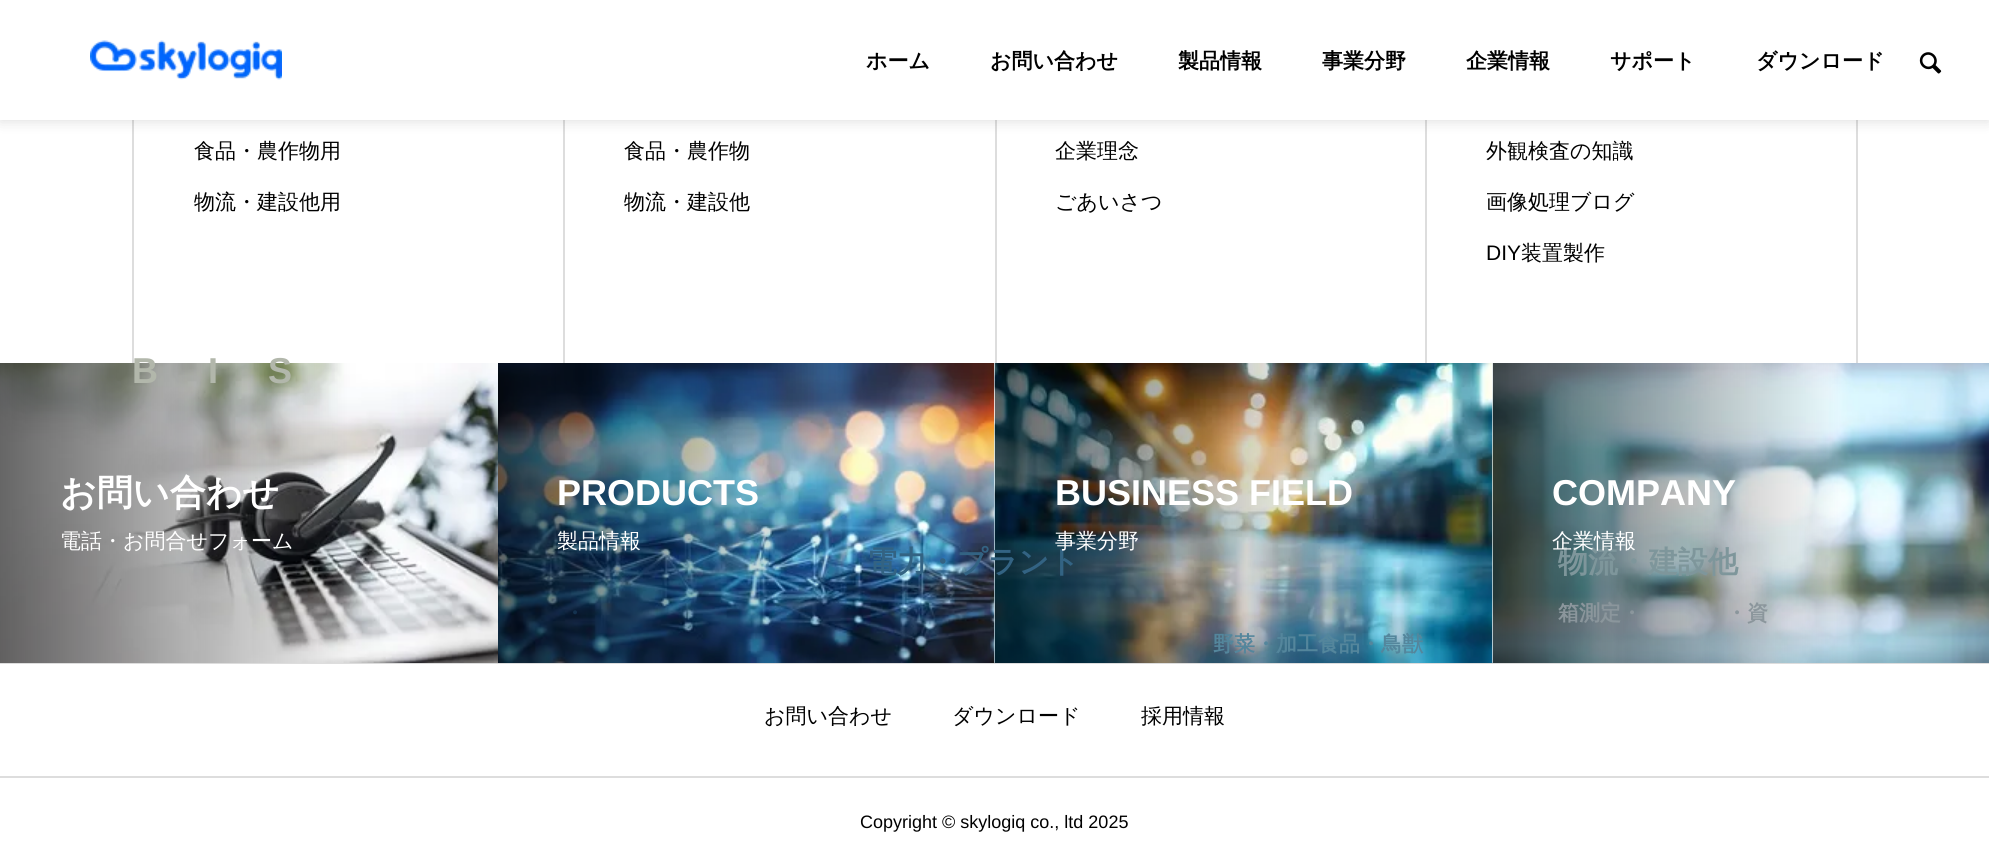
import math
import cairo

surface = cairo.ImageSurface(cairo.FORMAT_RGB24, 1989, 867)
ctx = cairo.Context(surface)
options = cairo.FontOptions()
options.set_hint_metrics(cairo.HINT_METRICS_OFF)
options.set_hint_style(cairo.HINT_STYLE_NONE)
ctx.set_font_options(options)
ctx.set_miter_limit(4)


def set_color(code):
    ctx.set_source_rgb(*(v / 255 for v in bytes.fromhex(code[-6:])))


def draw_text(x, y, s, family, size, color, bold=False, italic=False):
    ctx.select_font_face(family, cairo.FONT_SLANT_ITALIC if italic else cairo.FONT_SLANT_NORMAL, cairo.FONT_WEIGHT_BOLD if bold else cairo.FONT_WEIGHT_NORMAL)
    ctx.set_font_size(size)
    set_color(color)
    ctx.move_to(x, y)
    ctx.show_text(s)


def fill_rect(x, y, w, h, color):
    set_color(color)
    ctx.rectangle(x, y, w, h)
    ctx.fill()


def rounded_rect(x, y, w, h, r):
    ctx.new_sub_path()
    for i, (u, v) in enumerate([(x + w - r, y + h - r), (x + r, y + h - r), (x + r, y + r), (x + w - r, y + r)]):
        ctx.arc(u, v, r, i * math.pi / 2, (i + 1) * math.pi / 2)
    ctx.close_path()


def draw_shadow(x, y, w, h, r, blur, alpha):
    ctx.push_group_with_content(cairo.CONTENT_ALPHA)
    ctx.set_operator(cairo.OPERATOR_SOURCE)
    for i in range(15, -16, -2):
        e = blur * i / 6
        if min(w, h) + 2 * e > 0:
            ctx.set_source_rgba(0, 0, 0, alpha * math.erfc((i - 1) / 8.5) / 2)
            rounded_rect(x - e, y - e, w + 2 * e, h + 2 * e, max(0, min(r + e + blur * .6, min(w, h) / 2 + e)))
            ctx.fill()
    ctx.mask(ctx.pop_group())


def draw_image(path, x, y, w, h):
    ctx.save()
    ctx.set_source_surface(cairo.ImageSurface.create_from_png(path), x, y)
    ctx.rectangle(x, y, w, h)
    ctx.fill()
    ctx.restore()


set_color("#ffffff")
ctx.paint()
fill_rect(132, 120, 2, 243, "#dddddd")
fill_rect(563, 120, 2, 243, "#dddddd")
fill_rect(995, 120, 2, 243, "#dddddd")
fill_rect(1856, 120, 2, 243, "#dddddd")
fill_rect(1425, 120, 2, 243, "#dddddd")
set_color("#000000")
draw_shadow(0, 0, 1989, 120, 0, 7.5, 0.15)
fill_rect(0, 0, 1989, 120, "#ffffff")
draw_image("assets/img1.png", 90, 40, 192, 40)
draw_text(866, 68, "ホーム", "WenQuanYi Zen Hei", 21, "#000000", bold=True)
draw_text(990, 68, "お問い合わせ", "WenQuanYi Zen Hei", 21, "#000000", bold=True)
draw_text(1178, 68, "製品情報", "WenQuanYi Zen Hei", 21, "#000000", bold=True)
draw_text(1322, 68, "事業分野", "WenQuanYi Zen Hei", 21, "#000000", bold=True)
draw_text(1466, 68, "企業情報", "WenQuanYi Zen Hei", 21, "#000000", bold=True)
draw_text(1610, 68, "サポート", "WenQuanYi Zen Hei", 21, "#000000", bold=True)
draw_text(1756, 68, "ダウンロード", "WenQuanYi Zen Hei", 21, "#000000", bold=True)
draw_image("assets/img2.png", 1919, 52, 23, 22)
fill_rect(0, 662, 1989, 2, "#dddddd")
draw_image("assets/img3.png", 0, 363, 498, 300)
draw_text(132, 383, "B", "Liberation Sans", 36, "#b2b7ab", bold=True)
draw_text(208, 383, "I", "Liberation Sans", 36, "#b2b7ab", bold=True)
draw_text(268, 383, "S", "Liberation Sans", 36, "#b2b7ab", bold=True)
draw_image("assets/img4.png", 498, 363, 497, 300)
draw_text(564, 620, "・", "WenQuanYi Zen Hei", 21, "#14324f", bold=True)
draw_image("assets/img5.png", 994, 363, 499, 300)
draw_text(867, 572, "電力・プラント", "WenQuanYi Zen Hei", 30, "#336383", bold=True)
draw_image("assets/img6.png", 1492, 363, 497, 300)
draw_text(1558, 572, "物流・建設他", "WenQuanYi Zen Hei", 30, "#7e969b", bold=True)
draw_text(1558, 620, "箱測定・", "WenQuanYi Zen Hei", 21, "#8b969c", bold=True)
draw_text(1726, 620, "・資", "WenQuanYi Zen Hei", 21, "#8b969c", bold=True)
draw_text(1213, 651, "野菜・加工食品・鳥獣", "WenQuanYi Zen Hei", 21, "#54869c", bold=True)
draw_text(194, 158, "食品・農作物用", "WenQuanYi Zen Hei Medium", 21, "#000000")
draw_text(194, 209, "物流・建設他用", "WenQuanYi Zen Hei Medium", 21, "#000000")
draw_text(624, 158, "食品・農作物", "WenQuanYi Zen Hei Medium", 21, "#000000")
draw_text(624, 209, "物流・建設他", "WenQuanYi Zen Hei Medium", 21, "#000000")
draw_text(1055, 158, "企業理念", "WenQuanYi Zen Hei Medium", 21, "#000000")
draw_text(1055, 209, "ごあいさつ", "WenQuanYi Zen Hei Medium", 21, "#000000")
draw_text(1486, 158, "外観検査の知識", "WenQuanYi Zen Hei Medium", 21, "#000000")
draw_text(1486, 209, "画像処理ブログ", "WenQuanYi Zen Hei Medium", 21, "#000000")
draw_text(1486, 260, "DIY", "Liberation Sans", 21, "#000000")
draw_text(1521, 260, "装置製作", "WenQuanYi Zen Hei Medium", 21, "#000000")
draw_text(60, 505, "お問い合わせ", "WenQuanYi Zen Hei", 36, "#ffffff", bold=True)
draw_text(60, 548, "電話・お問合せフォーム", "WenQuanYi Zen Hei Medium", 21, "#ffffff")
draw_text(557, 505, "PRODUCTS", "Liberation Sans", 36, "#ffffff", bold=True)
draw_text(557, 548, "製品情報", "WenQuanYi Zen Hei Medium", 21, "#ffffff")
draw_text(1055, 505, "BUSINESS FIELD", "Liberation Sans", 36, "#ffffff", bold=True)
draw_text(1055, 548, "事業分野", "WenQuanYi Zen Hei Medium", 21, "#ffffff")
draw_text(1552, 505, "COMPANY", "Liberation Sans", 36, "#ffffff", bold=True)
draw_text(1552, 548, "企業情報", "WenQuanYi Zen Hei Medium", 21, "#ffffff")
draw_text(764, 723, "お問い合わせ", "WenQuanYi Zen Hei Medium", 21, "#000000")
draw_text(952, 723, "ダウンロード", "WenQuanYi Zen Hei Medium", 21, "#000000")
draw_text(1141, 723, "採用情報", "WenQuanYi Zen Hei Medium", 21, "#000000")
fill_rect(0, 776, 1989, 2, "#dddddd")
draw_text(860, 828, "Copyright © skylogiq co., ltd 2025", "Liberation Sans", 18, "#000000")
surface.write_to_png("output.png")
